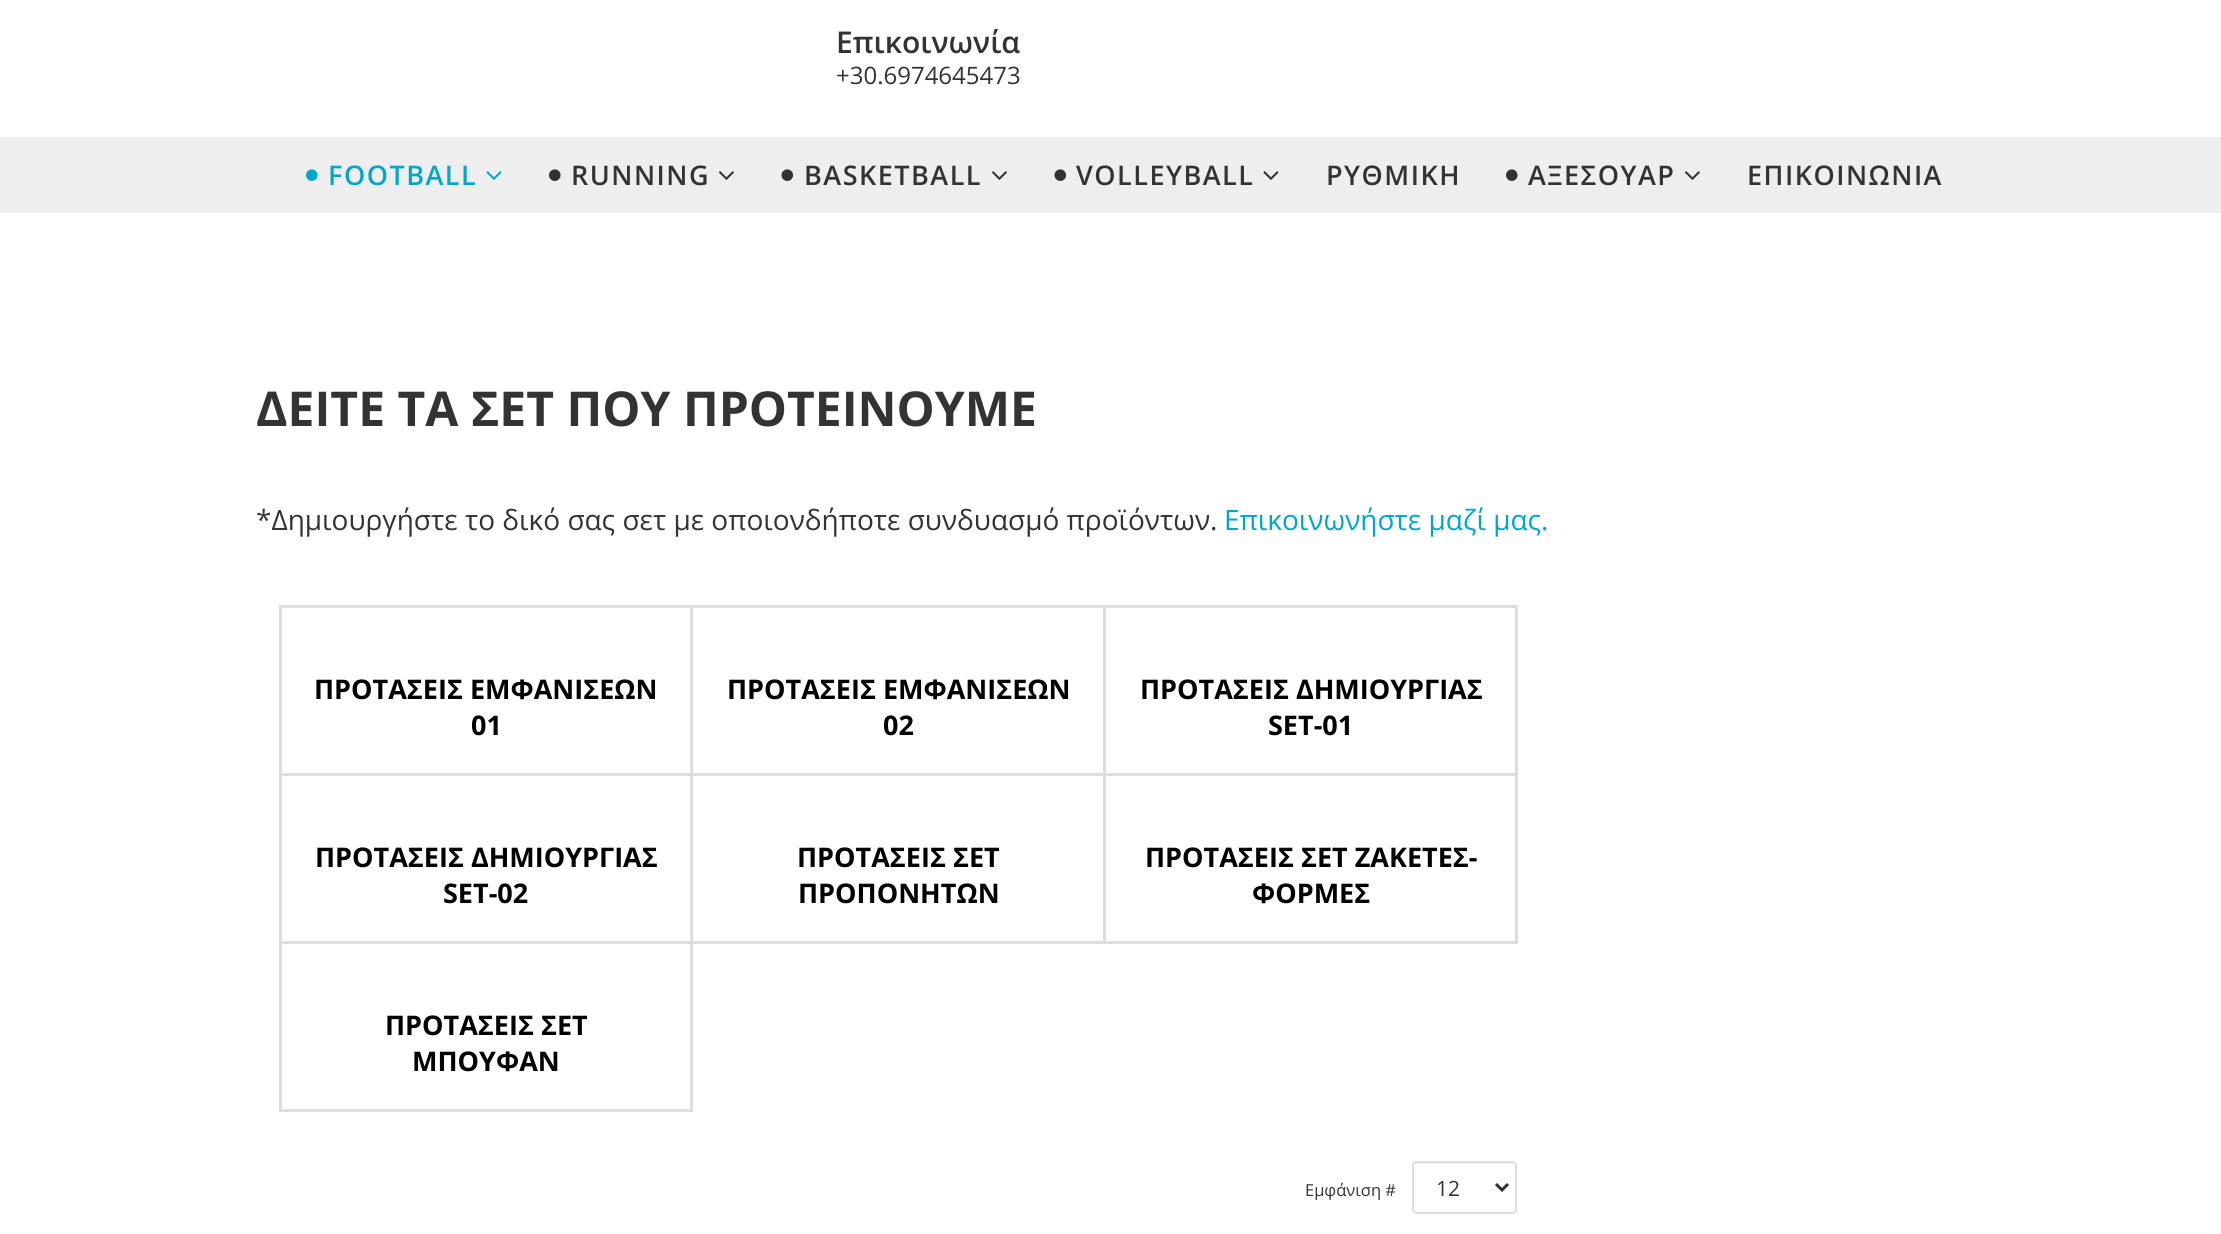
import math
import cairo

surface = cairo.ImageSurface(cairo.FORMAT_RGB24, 2221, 1234)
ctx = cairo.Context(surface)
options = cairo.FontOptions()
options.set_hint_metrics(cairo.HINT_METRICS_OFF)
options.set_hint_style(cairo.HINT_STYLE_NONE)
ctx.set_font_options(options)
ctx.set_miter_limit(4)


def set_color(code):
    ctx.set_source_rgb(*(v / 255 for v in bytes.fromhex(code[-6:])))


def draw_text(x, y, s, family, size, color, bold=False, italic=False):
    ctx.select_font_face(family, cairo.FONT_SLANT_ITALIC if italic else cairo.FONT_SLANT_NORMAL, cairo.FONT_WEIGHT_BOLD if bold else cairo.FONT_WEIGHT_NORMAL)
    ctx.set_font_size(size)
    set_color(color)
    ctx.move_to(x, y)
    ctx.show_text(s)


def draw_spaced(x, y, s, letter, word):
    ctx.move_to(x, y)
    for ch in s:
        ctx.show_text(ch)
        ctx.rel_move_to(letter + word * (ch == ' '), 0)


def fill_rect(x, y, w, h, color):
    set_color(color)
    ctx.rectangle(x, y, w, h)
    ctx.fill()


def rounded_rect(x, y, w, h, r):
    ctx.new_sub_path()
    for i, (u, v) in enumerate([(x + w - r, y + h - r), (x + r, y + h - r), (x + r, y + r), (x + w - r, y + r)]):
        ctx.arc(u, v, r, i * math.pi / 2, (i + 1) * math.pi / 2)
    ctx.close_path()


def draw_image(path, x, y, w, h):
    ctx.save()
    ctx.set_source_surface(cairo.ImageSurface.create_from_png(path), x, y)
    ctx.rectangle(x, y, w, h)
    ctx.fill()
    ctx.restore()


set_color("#ffffff")
ctx.paint()
draw_text(836, 53, "Επικοινωνία", "Open Sans SemiBold", 30, "#333333")
draw_text(836, 84, "+30.6974645473", "Open Sans", 24, "#333333")
fill_rect(0, 137, 2221, 76, "#eeeeee")
draw_image("assets/img1.png", 306, 169, 12, 12)
ctx.select_font_face("Open Sans SemiBold")
ctx.set_font_size(27)
set_color("#00a6cc")
draw_spaced(328, 185, "FOOTBALL", 1.5, 0)
draw_image("assets/img2.png", 486, 171, 16, 9)
draw_image("assets/img3.png", 549, 169, 12, 12)
set_color("#333333")
draw_spaced(571, 185, "RUNNING", 1.5, 0)
draw_image("assets/img4.png", 719, 171, 15, 9)
draw_image("assets/img5.png", 781, 169, 13, 12)
draw_spaced(804, 185, "BASKETBALL", 1.5, 0)
draw_image("assets/img4.png", 992, 171, 15, 9)
draw_image("assets/img5.png", 1054, 169, 13, 12)
draw_spaced(1076, 185, "VOLLEYBALL", 1.5, 0)
draw_image("assets/img6.png", 1263, 171, 16, 9)
draw_spaced(1326, 185, "ΡΥΘΜΙΚΗ", 1.5, 0)
draw_image("assets/img3.png", 1506, 169, 12, 12)
draw_spaced(1528, 185, "ΑΞΕΣΟΥΑΡ", 1.5, 0)
draw_image("assets/img4.png", 1685, 171, 15, 9)
draw_spaced(1747, 185, "ΕΠΙΚΟΙΝΩΝΙΑ", 1.5, 0)
draw_text(256, 426, "ΔΕΙΤΕ ΤΑ ΣΕΤ ΠΟΥ ΠΡΟΤΕΙΝΟΥΜΕ", "Open Sans", 48, "#333333", bold=True)
draw_text(256, 530, "*Δημιουργήστε το δικό σας σετ με οποιονδήποτε συνδυασμό προϊόντων.", "Open Sans", 28, "#333333")
draw_text(1224, 530, "Επικοινωνήστε μαζί μας.", "Open Sans", 28, "#00a6cc")
ctx.rectangle(280.5, 606.5, 411, 168)
set_color("#dddddd")
ctx.set_line_width(3)
ctx.stroke()
draw_text(314, 699, "ΠΡΟΤΑΣΕΙΣ ΕΜΦΑΝΙΣΕΩΝ", "Open Sans", 27, "#000000", bold=True)
draw_text(471, 735, "01", "Open Sans", 27, "#000000", bold=True)
ctx.rectangle(691.5, 606.5, 413, 168)
set_color("#dddddd")
ctx.stroke()
draw_text(727, 699, "ΠΡΟΤΑΣΕΙΣ ΕΜΦΑΝΙΣΕΩΝ", "Open Sans", 27, "#000000", bold=True)
draw_text(883, 735, "02", "Open Sans", 27, "#000000", bold=True)
ctx.rectangle(1104.5, 606.5, 412, 168)
set_color("#dddddd")
ctx.stroke()
draw_text(1140, 699, "ΠΡΟΤΑΣΕΙΣ ΔΗΜΙΟΥΡΓΙΑΣ", "Open Sans", 27, "#000000", bold=True)
draw_text(1268, 735, "SET-01", "Open Sans", 27, "#000000", bold=True)
ctx.rectangle(280.5, 774.5, 411, 168)
set_color("#dddddd")
ctx.stroke()
draw_text(315, 867, "ΠΡΟΤΑΣΕΙΣ ΔΗΜΙΟΥΡΓΙΑΣ", "Open Sans", 27, "#000000", bold=True)
draw_text(443, 903, "SET-02", "Open Sans", 27, "#000000", bold=True)
ctx.rectangle(691.5, 774.5, 413, 168)
set_color("#dddddd")
ctx.stroke()
draw_text(797, 867, "ΠΡΟΤΑΣΕΙΣ ΣΕΤ", "Open Sans", 27, "#000000", bold=True)
draw_text(798, 903, "ΠΡΟΠΟΝΗΤΩΝ", "Open Sans", 27, "#000000", bold=True)
ctx.rectangle(1104.5, 774.5, 412, 168)
set_color("#dddddd")
ctx.stroke()
draw_text(1145, 867, "ΠΡΟΤΑΣΕΙΣ ΣΕΤ ΖΑΚΕΤΕΣ-", "Open Sans", 27, "#000000", bold=True)
draw_text(1252, 903, "ΦΟΡΜΕΣ", "Open Sans", 27, "#000000", bold=True)
ctx.rectangle(280.5, 942.5, 411, 168)
set_color("#dddddd")
ctx.stroke()
draw_text(385, 1035, "ΠΡΟΤΑΣΕΙΣ ΣΕΤ", "Open Sans", 27, "#000000", bold=True)
draw_text(412, 1071, "ΜΠΟΥΦΑΝ", "Open Sans", 27, "#000000", bold=True)
draw_text(1305, 1196, "Εμφάνιση #", "Open Sans", 16.5, "#333333")
set_color("#ececec")
ctx.new_path()
ctx.move_to(1416, 1164)
ctx.line_to(1512, 1164)
ctx.curve_to(1514, 1164, 1515, 1165, 1515, 1167)
ctx.curve_to(1515, 1159, 1499, 1163, 1496, 1163)
ctx.line_to(1432, 1163)
ctx.curve_to(1429, 1163, 1413, 1159, 1413, 1167)
ctx.curve_to(1413, 1165, 1414, 1164, 1416, 1164)
ctx.close_path()
ctx.fill()
rounded_rect(1413, 1162, 103, 51, 4)
set_color("#dddddd")
ctx.set_line_width(2)
ctx.stroke()
ctx.new_path()
ctx.move_to(1496, 1184)
ctx.line_to(1502, 1190)
ctx.line_to(1508, 1184)
set_color("#333333")
ctx.set_line_width(3)
ctx.stroke()
draw_text(1436, 1196, "12", "Open Sans", 21, "#333333")
surface.write_to_png("output.png")
